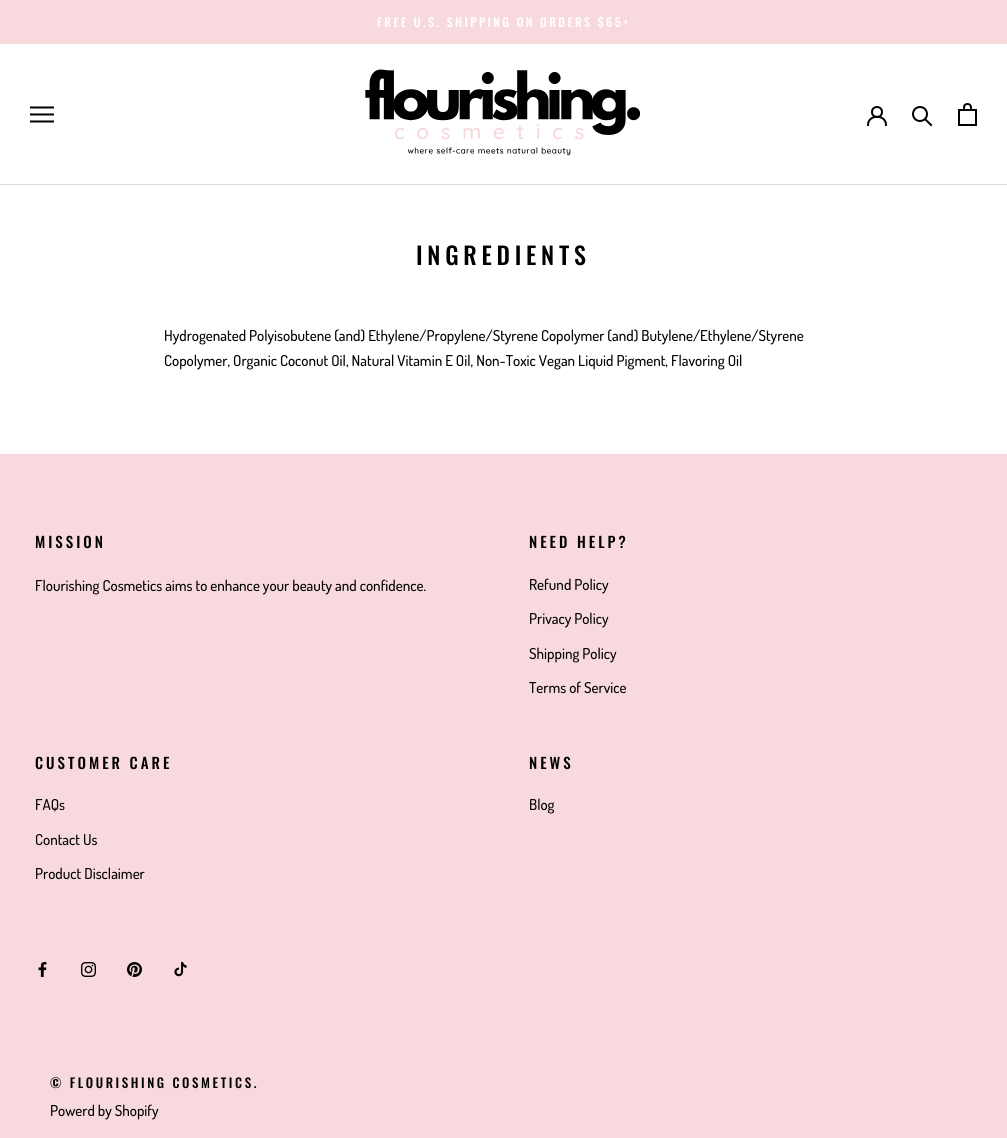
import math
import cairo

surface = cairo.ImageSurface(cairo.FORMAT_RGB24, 1007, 1138)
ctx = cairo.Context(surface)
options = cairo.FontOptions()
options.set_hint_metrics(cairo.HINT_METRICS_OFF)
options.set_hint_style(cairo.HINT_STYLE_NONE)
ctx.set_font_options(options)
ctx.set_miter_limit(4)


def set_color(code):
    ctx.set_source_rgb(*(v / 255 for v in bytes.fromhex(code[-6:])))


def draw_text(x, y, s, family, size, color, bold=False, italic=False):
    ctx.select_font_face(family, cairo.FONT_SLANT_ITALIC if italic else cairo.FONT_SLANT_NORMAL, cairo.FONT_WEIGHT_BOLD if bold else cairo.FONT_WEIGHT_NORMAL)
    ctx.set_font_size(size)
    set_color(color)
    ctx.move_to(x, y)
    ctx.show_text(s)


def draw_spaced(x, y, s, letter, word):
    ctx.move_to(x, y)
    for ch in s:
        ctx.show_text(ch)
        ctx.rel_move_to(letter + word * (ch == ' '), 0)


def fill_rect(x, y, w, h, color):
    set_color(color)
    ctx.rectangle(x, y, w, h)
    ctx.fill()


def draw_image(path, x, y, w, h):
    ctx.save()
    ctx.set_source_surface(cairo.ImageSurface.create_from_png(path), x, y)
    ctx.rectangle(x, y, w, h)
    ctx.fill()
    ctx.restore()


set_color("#ffffff")
ctx.paint()
fill_rect(0, 0, 1007, 44, "#f8dade")
ctx.select_font_face("Oswald Medium")
ctx.set_font_size(12)
set_color("#ffffff")
draw_spaced(377, 27, "FREE U.S. SHIPPING ON ORDERS $65+", 2.4, 0)
fill_rect(0, 184, 1007, 1, "#d9d9d9")
draw_image("assets/img1.png", 30, 106, 24, 17)
draw_image("assets/img2.png", 365, 69, 276, 87)
ctx.new_path()
ctx.move_to(868, 125)
ctx.curve_to(868, 114, 886, 114, 886, 125)
set_color("#000000")
ctx.set_line_cap(cairo.LINE_CAP_SQUARE)
ctx.stroke()
ctx.arc(877, 112, 5, 0, 2 * math.pi)
ctx.set_line_cap(cairo.LINE_CAP_BUTT)
ctx.stroke()
ctx.new_path()
ctx.move_to(931, 125)
ctx.line_to(925.5, 119.5)
ctx.set_line_cap(cairo.LINE_CAP_SQUARE)
ctx.stroke()
ctx.arc(920, 114, 7, 0, 2 * math.pi)
ctx.set_line_cap(cairo.LINE_CAP_BUTT)
ctx.stroke()
draw_image("assets/img3.png", 958, 103, 19, 23)
ctx.set_font_size(24)
draw_spaced(416, 265, "INGREDIENTS", 4.75, 0)
draw_text(164, 341, "Hydrogenated Polyisobutene (and) Ethylene/Propylene/Styrene Copolymer (and) Butylene/Ethylene/Styrene", "Dosis Medium", 15, "#000000")
draw_text(164, 366, "Copolymer, Organic Coconut Oil, Natural Vitamin E Oil, Non-Toxic Vegan Liquid Pigment, Flavoring Oil", "Dosis Medium", 15, "#000000")
fill_rect(0, 454, 1007, 684, "#f8dade")
ctx.select_font_face("Oswald Medium")
set_color("#000000")
draw_spaced(35, 548, "MISSION", 3, 0)
draw_text(35, 591, "Flourishing Cosmetics aims to enhance your beauty and confidence.", "Dosis Medium", 15, "#000000")
ctx.select_font_face("Oswald Medium")
draw_spaced(529, 548, "NEED HELP?", 3, 0)
draw_text(529, 590, "Refund Policy", "Dosis Medium", 15, "#000000")
draw_text(529, 624, "Privacy Policy", "Dosis Medium", 15, "#000000")
draw_text(529, 659, "Shipping Policy", "Dosis Medium", 15, "#000000")
draw_text(529, 693, "Terms of Service", "Dosis Medium", 15, "#000000")
ctx.select_font_face("Oswald Medium")
draw_spaced(35, 769, "CUSTOMER CARE", 3, 0)
draw_text(35, 810, "FAQs", "Dosis Medium", 15, "#000000")
draw_text(35, 845, "Contact Us", "Dosis Medium", 15, "#000000")
draw_text(35, 879, "Product Disclaimer", "Dosis Medium", 15, "#000000")
ctx.select_font_face("Oswald Medium")
draw_spaced(529, 769, "NEWS", 3, 0)
draw_text(529, 810, "Blog", "Dosis Medium", 15, "#000000")
draw_image("assets/img4.png", 38, 962, 9, 15)
draw_image("assets/img5.png", 81, 962, 15, 15)
draw_image("assets/img6.png", 127, 962, 15, 15)
draw_image("assets/img7.png", 174, 962, 13, 15)
ctx.select_font_face("Oswald Medium")
ctx.set_font_size(13)
draw_spaced(50, 1088, "© FLOURISHING COSMETICS.", 2.6, 0)
draw_text(50, 1116, "Powerd by Shopify", "Dosis Medium", 15, "#000000")
surface.write_to_png("output.png")
